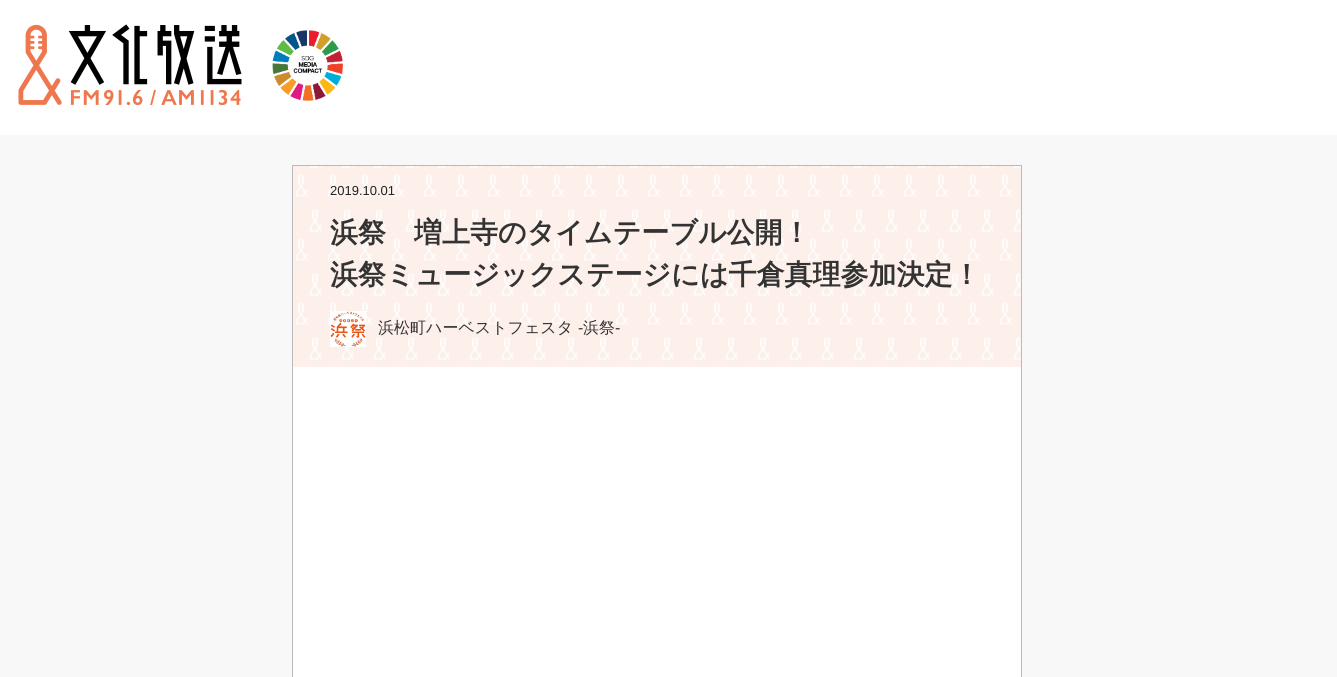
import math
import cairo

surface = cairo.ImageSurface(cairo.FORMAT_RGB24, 1337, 677)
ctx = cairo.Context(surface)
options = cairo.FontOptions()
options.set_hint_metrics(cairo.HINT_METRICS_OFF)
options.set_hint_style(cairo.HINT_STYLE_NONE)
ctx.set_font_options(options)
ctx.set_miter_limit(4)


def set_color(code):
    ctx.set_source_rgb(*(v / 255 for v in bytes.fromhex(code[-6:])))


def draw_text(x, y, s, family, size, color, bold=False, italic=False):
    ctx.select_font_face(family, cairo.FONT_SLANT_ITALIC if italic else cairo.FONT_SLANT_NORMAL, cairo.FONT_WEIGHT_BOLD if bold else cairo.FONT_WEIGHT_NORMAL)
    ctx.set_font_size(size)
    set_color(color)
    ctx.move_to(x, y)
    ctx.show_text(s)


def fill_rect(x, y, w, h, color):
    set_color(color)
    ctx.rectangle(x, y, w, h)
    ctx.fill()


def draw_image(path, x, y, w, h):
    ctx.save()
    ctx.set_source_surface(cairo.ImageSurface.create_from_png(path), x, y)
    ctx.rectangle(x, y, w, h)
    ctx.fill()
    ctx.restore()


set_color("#ffffff")
ctx.paint()
draw_image("assets/img1.png", 18, 24, 224, 81)
draw_image("assets/img2.png", 272, 30, 71, 71)
fill_rect(0, 135, 1337, 542, "#f8f8f8")
fill_rect(293, 367, 728, 310, "#ffffff")
ctx.rectangle(292.5, 165.5, 729, 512)
set_color("#bababa")
ctx.set_line_width(1)
ctx.stroke()
draw_image("assets/img3.png", 293, 166, 728, 201)
draw_text(330, 195, "2019.10.01", "Liberation Sans", 13, "#222222")
draw_text(330, 242, "浜祭　増上寺のタイムテーブル公開！", "WenQuanYi Zen Hei", 28, "#333333", bold=True)
draw_text(330, 284, "浜祭ミュージックステージには千倉真理参加決定！", "WenQuanYi Zen Hei", 28, "#333333", bold=True)
draw_image("assets/img4.png", 330, 311, 36, 36)
draw_text(378, 333, "浜松町ハーベストフェスタ", "WenQuanYi Zen Hei Medium", 16, "#333333")
draw_text(578, 333, "-", "Liberation Sans", 16, "#333333")
draw_text(583, 333, "浜祭", "WenQuanYi Zen Hei Medium", 16, "#333333")
draw_text(615, 333, "-", "Liberation Sans", 16, "#333333")
surface.write_to_png("output.png")
